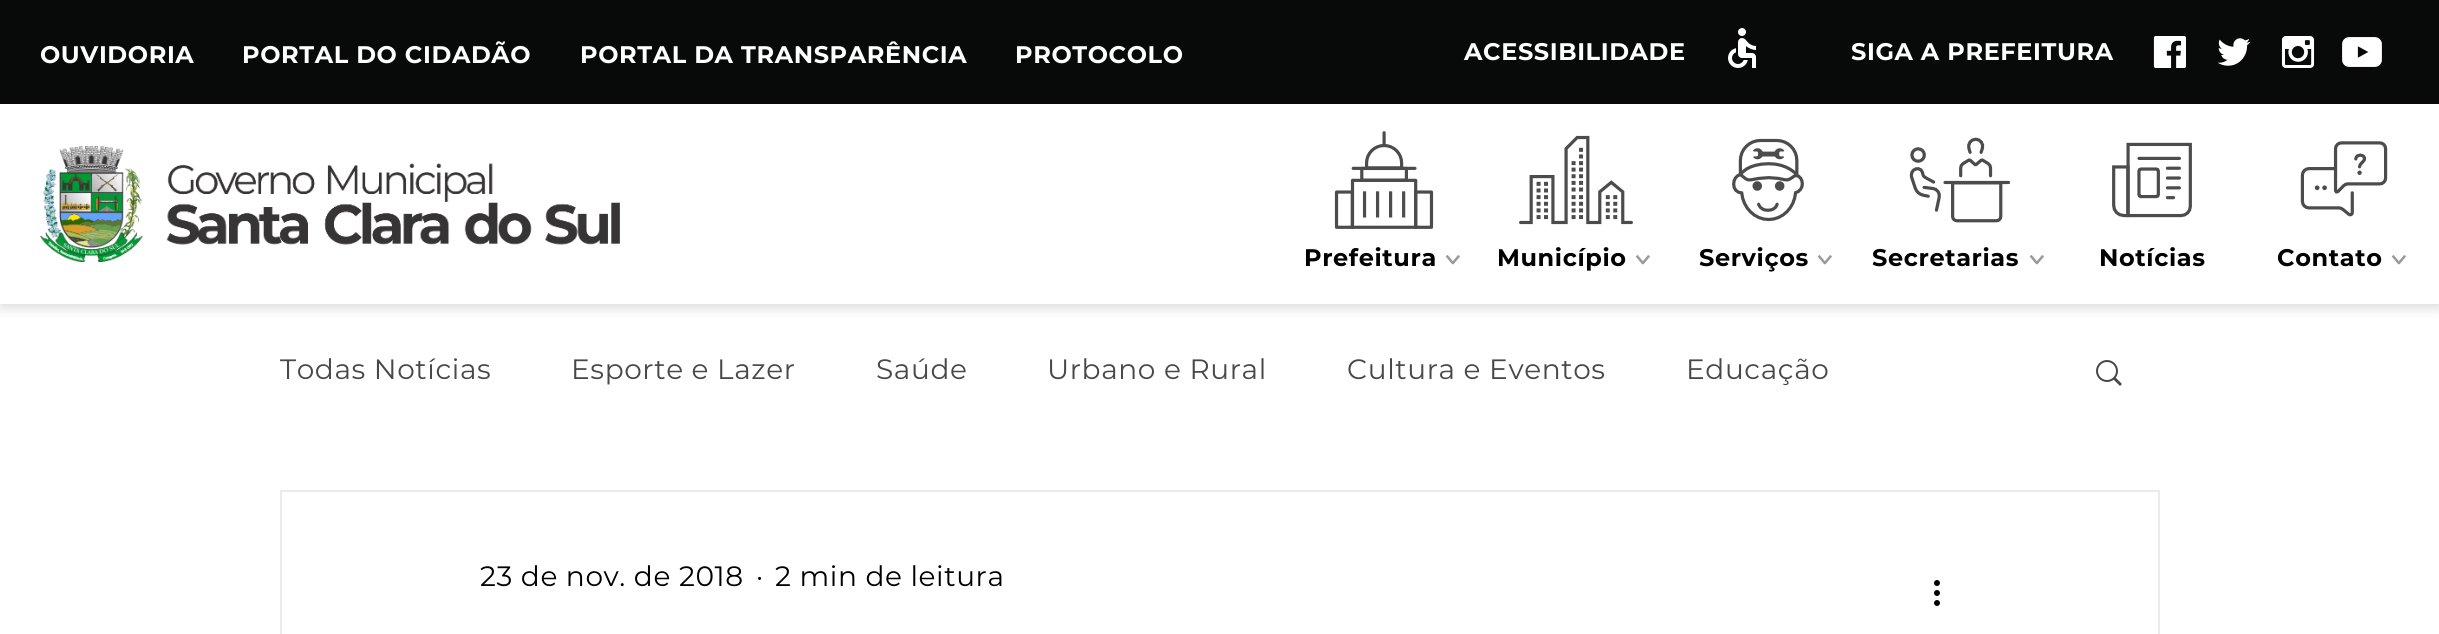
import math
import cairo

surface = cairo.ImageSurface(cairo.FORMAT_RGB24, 2439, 634)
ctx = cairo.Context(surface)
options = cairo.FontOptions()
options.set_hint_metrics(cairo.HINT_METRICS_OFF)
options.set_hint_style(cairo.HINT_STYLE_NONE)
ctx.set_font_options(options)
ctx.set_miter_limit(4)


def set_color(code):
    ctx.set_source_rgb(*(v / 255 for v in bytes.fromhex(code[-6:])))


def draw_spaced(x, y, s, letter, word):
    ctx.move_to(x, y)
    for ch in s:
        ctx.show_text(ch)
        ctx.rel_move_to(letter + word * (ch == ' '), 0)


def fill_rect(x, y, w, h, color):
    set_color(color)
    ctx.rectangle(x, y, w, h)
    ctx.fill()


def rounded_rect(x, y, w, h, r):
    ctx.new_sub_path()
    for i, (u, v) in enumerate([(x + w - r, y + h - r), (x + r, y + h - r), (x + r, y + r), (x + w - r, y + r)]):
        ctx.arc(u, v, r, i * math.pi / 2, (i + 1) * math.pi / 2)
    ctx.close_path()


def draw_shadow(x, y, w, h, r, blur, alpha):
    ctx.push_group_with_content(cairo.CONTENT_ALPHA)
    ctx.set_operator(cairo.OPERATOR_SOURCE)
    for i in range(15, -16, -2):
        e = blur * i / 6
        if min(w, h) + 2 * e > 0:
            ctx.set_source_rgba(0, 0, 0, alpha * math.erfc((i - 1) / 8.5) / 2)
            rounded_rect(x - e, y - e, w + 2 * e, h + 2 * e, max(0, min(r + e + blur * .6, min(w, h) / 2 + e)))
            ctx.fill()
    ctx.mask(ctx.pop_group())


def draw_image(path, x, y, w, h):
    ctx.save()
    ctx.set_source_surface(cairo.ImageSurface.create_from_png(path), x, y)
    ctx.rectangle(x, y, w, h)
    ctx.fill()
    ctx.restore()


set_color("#ffffff")
ctx.paint()
fill_rect(0, 0, 2439, 104, "#080909")
ctx.select_font_face("Montserrat", cairo.FONT_SLANT_NORMAL, cairo.FONT_WEIGHT_BOLD)
ctx.set_font_size(24)
set_color("#ffffff")
draw_spaced(40, 63, "OUVIDORIA", 0.6, 0)
draw_spaced(242, 63, "PORTAL DO CIDADÃO", 0.6, 0)
draw_spaced(580, 63, "PORTAL DA TRANSPARÊNCIA", 0.6, 0)
draw_spaced(1015, 63, "PROTOCOLO", 0.6, 0)
draw_spaced(1464, 60, "ACESSIBILIDADE", 0.6, 0)
draw_image("assets/img1.png", 1728, 28, 28, 40)
draw_spaced(1851, 60, "SIGA A PREFEITURA", 0.6, 0)
draw_image("assets/img2.png", 2153, 36, 33, 32)
draw_image("assets/img3.png", 2217, 38, 34, 28)
draw_image("assets/img4.png", 2281, 36, 34, 32)
draw_image("assets/img5.png", 2342, 37, 40, 30)
ctx.save()
ctx.set_fill_rule(cairo.FILL_RULE_EVEN_ODD)
ctx.new_path()
ctx.move_to(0, 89)
ctx.line_to(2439, 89)
ctx.line_to(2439, 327)
ctx.line_to(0, 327)
ctx.close_path()
ctx.move_to(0, 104)
ctx.line_to(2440, 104)
ctx.line_to(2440, 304)
ctx.line_to(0, 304)
ctx.close_path()
ctx.clip()
set_color("#000000")
draw_shadow(0, 108, 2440, 200, 0, 6, 0.14)
ctx.restore()
draw_image("assets/img6.png", 40, 146, 580, 116)
draw_image("assets/img7.png", 1334, 131, 100, 98)
set_color("#000000")
draw_spaced(1304, 266, "Prefeitura", 0.6, 0)
draw_image("assets/img8.png", 1445, 255, 15, 10)
draw_image("assets/img9.png", 1519, 135, 114, 90)
draw_spaced(1497, 266, "Município", 0.6, 0)
draw_image("assets/img8.png", 1635, 255, 15, 10)
draw_image("assets/img10.png", 1732, 138, 72, 84)
draw_spaced(1699, 266, "Serviços", 0.6, 0)
draw_image("assets/img8.png", 1817, 255, 15, 10)
draw_image("assets/img11.png", 1909, 137, 102, 86)
draw_spaced(1872, 266, "Secretarias", 0.6, 0)
draw_image("assets/img8.png", 2029, 255, 15, 10)
draw_image("assets/img12.png", 2112, 142, 80, 76)
draw_spaced(2099, 266, "Notícias", 0.6, 0)
draw_image("assets/img13.png", 2300, 141, 88, 76)
draw_spaced(2277, 266, "Contato", 0.6, 0)
draw_image("assets/img8.png", 2391, 255, 15, 10)
ctx.select_font_face("Montserrat")
ctx.set_font_size(28)
set_color("#494747")
draw_spaced(280, 379, "Todas Notícias", 0.6, 0)
draw_spaced(571, 379, "Esporte e Lazer", 0.6, 0)
draw_spaced(876, 379, "Saúde", 0.6, 0)
draw_spaced(1047, 379, "Urbano e Rural", 0.6, 0)
draw_spaced(1347, 379, "Cultura e Eventos", 0.6, 0)
draw_spaced(1686, 379, "Educação", 0.6, 0)
draw_image("assets/img14.png", 2096, 360, 26, 26)
ctx.rectangle(281, 491, 1878, 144)
set_color("#eaeaea")
ctx.stroke()
set_color("#000000")
draw_spaced(480, 586, "23 de nov. de 2018", 0.6, 0)
draw_spaced(756, 586, "·", 0.6, 0)
draw_spaced(775, 586, "2 min de leitura", 0.6, 0)
draw_image("assets/img15.png", 1934, 580, 6, 26)
surface.write_to_png("output.png")
